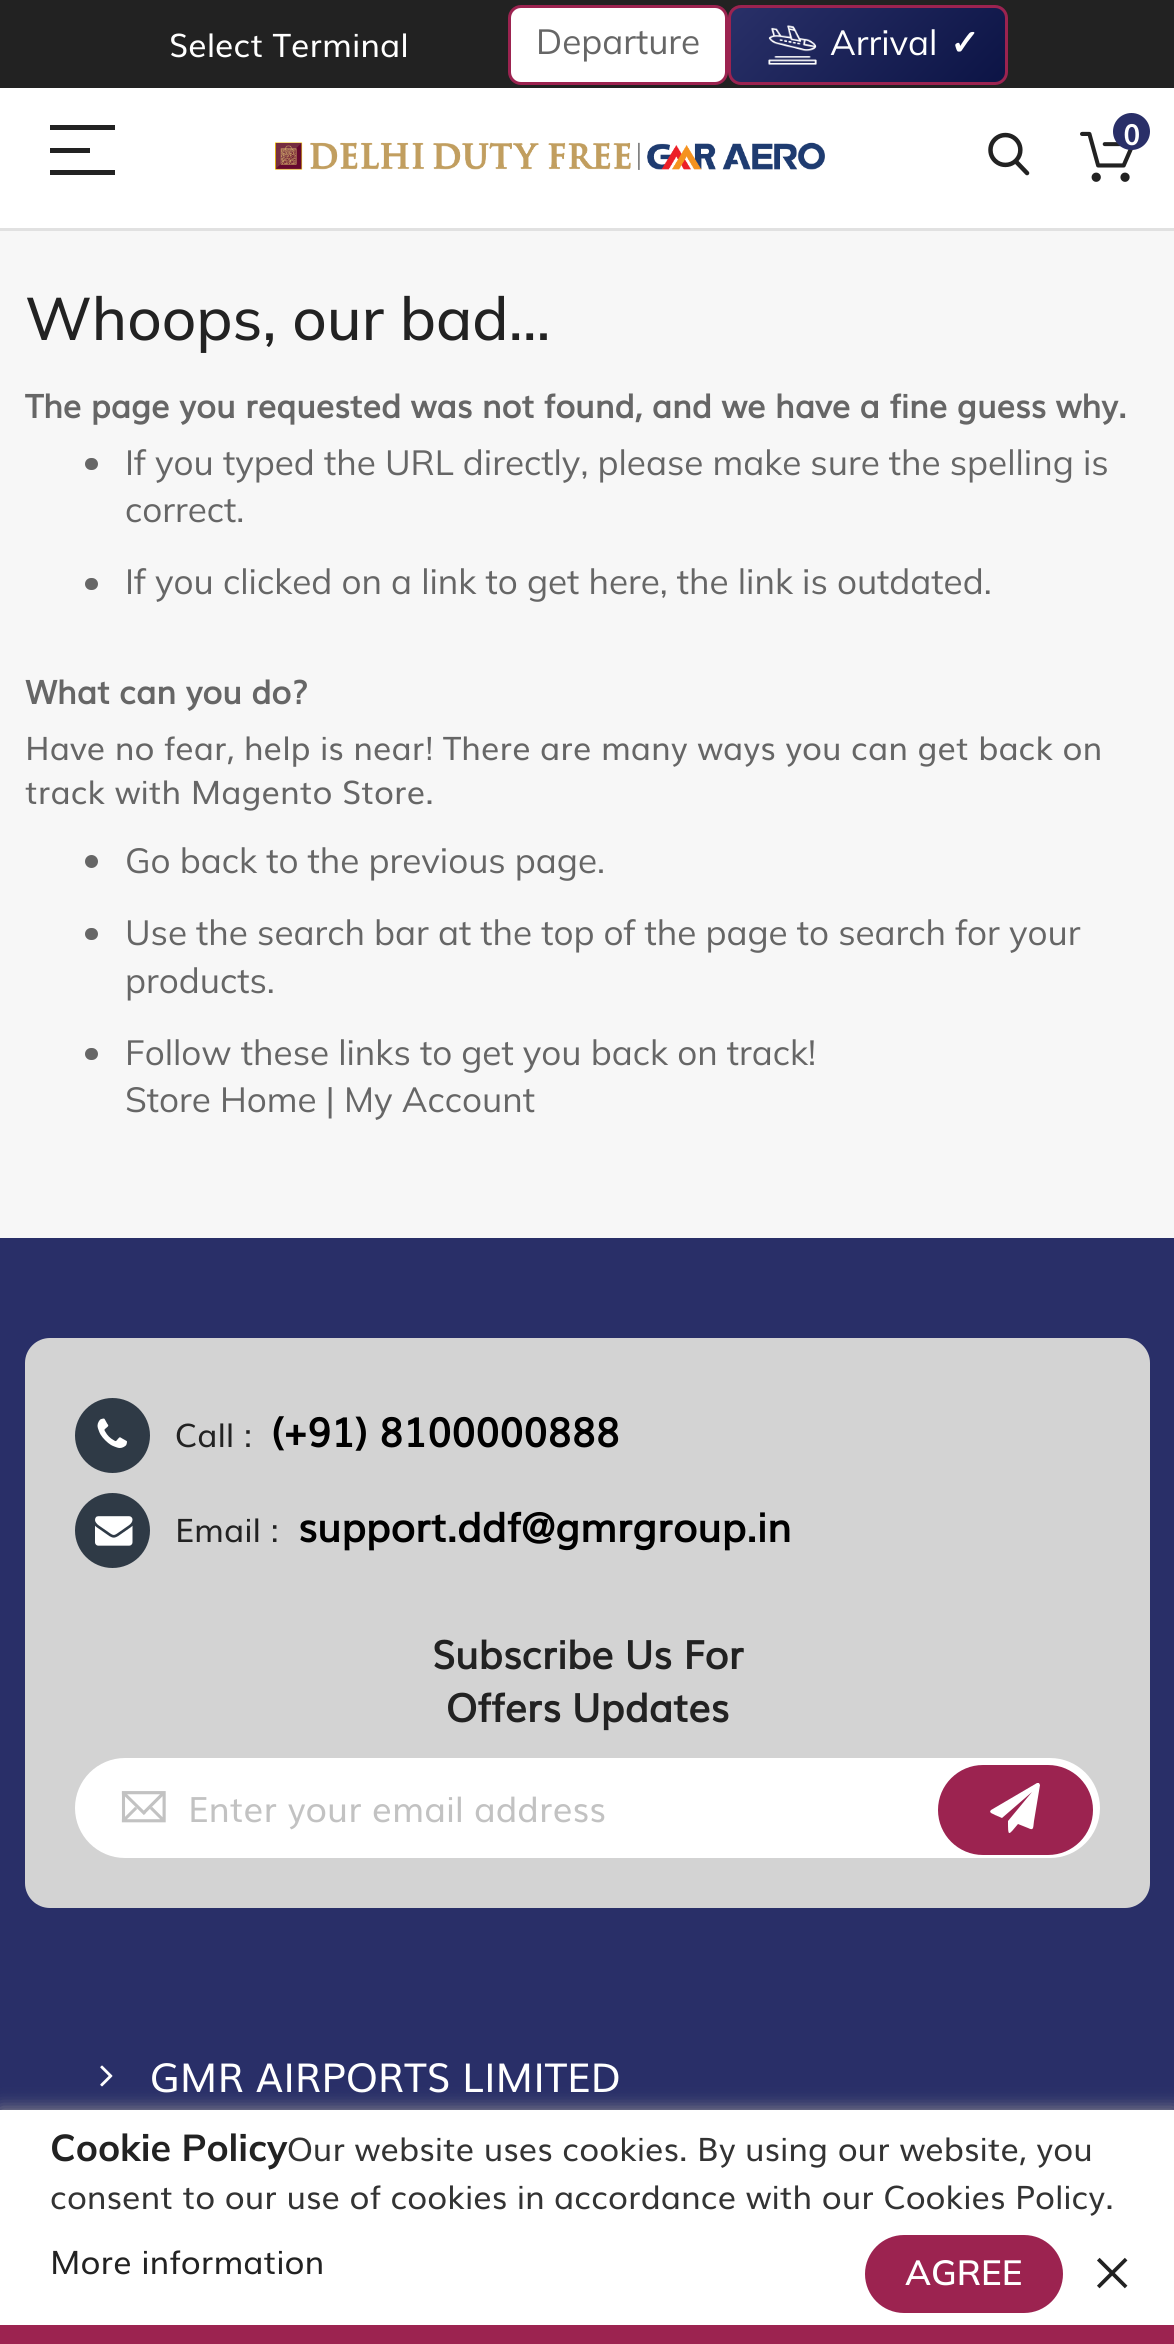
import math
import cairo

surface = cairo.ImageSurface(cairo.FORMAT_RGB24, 1174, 2344)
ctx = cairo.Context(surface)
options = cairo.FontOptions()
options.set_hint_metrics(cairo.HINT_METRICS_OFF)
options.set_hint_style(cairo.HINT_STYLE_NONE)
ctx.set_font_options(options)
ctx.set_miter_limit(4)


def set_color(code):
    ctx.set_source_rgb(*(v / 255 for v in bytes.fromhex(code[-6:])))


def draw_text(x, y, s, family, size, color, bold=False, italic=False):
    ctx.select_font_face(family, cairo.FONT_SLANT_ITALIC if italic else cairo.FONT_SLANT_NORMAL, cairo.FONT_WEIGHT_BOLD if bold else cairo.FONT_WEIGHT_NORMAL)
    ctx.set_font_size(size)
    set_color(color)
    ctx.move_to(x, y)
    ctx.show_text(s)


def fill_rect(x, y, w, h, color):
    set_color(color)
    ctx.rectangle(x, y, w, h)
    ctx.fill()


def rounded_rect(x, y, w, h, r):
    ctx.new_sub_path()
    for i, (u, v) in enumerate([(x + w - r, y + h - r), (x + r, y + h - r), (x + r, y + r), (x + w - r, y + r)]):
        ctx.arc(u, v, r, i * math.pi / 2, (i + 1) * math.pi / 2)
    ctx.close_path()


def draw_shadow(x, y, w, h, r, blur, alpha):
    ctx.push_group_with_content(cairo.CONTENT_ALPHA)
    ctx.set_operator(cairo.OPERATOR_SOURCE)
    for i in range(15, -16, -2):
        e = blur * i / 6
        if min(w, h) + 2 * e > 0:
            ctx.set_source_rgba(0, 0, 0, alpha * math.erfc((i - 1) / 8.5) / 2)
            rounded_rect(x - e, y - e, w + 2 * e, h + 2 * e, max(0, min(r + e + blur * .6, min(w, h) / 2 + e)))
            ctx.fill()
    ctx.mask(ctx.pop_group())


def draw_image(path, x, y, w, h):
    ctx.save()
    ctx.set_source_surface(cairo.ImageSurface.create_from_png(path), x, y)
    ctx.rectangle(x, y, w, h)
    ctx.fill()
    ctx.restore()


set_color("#f7f7f7")
ctx.paint()
fill_rect(0, 0, 1174, 88, "#222222")
draw_text(169, 57, "Select Terminal", "Muli", 32.5, "#ffffff")
rounded_rect(509.5, 6.5, 217, 77, 11.5)
ctx.fill_preserve()
set_color("#9c2350")
ctx.set_line_width(3)
ctx.stroke()
draw_text(536, 54, "Departure", "Mulish", 35, "#666666")
ctx.save()
rounded_rect(728, 5, 280, 80, 13)
ctx.clip()
gradient = cairo.LinearGradient(780, -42, 955, 133)
gradient.add_color_stop_rgba(0, 0.161, 0.188, 0.408, 1)
gradient.add_color_stop_rgba(1, 0.047, 0.078, 0.271, 1)
ctx.set_source(gradient)
ctx.rectangle(730, 8, 275, 75)
ctx.fill()
ctx.restore()
rounded_rect(729.5, 6.5, 277, 77, 11.5)
set_color("#9c2350")
ctx.stroke()
draw_image("assets/img1.png", 768, 25, 49, 40)
draw_text(830, 55, "Arrival", "Mulish", 35, "#ffffff")
draw_text(950, 55, "✓", "DejaVu Sans", 35, "#ffffff", bold=True)
fill_rect(0, 88, 1174, 140, "#ffffff")
fill_rect(0, 228, 1174, 3, "#e1e1e1")
fill_rect(50, 125, 65, 5, "#222222")
fill_rect(50, 170, 65, 5, "#222222")
fill_rect(50, 148, 40, 5, "#222222")
draw_image("assets/img2.png", 275, 142, 550, 28)
draw_image("assets/img3.png", 988, 132, 42, 44)
draw_image("assets/img4.png", 1080, 131, 53, 51)
set_color("#292f68")
ctx.arc(1131.5, 131.5, 18.5, 0, 2 * math.pi)
ctx.fill()
draw_text(1123, 145, "0", "Muli", 28, "#ffffff", bold=True)
draw_text(25, 340, "Whoops, our bad...", "Mulish Medium", 60, "#222222")
draw_text(25, 418, "The page you requested was not found, and we have a fine guess why.", "Muli", 32.5, "#666666", bold=True)
rounded_rect(85, 458, 13, 12, 6)
ctx.fill()
draw_text(125, 475, "If you typed the URL directly, please make sure the spelling is", "Mulish", 35, "#666666")
draw_text(125, 522, "correct.", "Mulish", 35, "#666666")
rounded_rect(85, 578, 13, 12, 6)
ctx.fill()
draw_text(125, 594, "If you clicked on a link to get here, the link is outdated.", "Mulish", 35, "#666666")
draw_text(25, 704, "What can you do?", "Muli", 32.5, "#666666", bold=True)
draw_text(25, 760, "Have no fear, help is near! There are many ways you can get back on", "Muli", 32.5, "#666666")
draw_text(25, 804, "track with Magento Store.", "Muli", 32.5, "#666666")
ctx.new_path()
ctx.arc(91.5, 861.5, 6.5, 0, 2 * math.pi)
ctx.fill()
draw_text(125, 873, "Go back to the previous page.", "Mulish", 35, "#666666")
rounded_rect(85, 928, 13, 12, 6)
ctx.fill()
draw_text(125, 945, "Use the search bar at the top of the page to search for your", "Mulish", 35, "#666666")
draw_text(125, 993, "products.", "Mulish", 35, "#666666")
rounded_rect(85, 1048, 13, 12, 6)
ctx.fill()
draw_text(125, 1065, "Follow these links to get you back on track!", "Mulish", 35, "#666666")
draw_text(125, 1112, "Store Home | My Account", "Mulish", 35, "#666666")
fill_rect(0, 1238, 1174, 872, "#292f68")
set_color("#d3d3d3")
rounded_rect(25, 1338, 1125, 570, 25)
ctx.fill()
set_color("#2f3a46")
ctx.arc(112.5, 1435.5, 37.5, 0, 2 * math.pi)
ctx.fill()
draw_image("assets/img5.png", 97, 1418, 30, 30)
draw_text(175, 1447, "Call :", "Muli", 32.5, "#222222")
draw_text(271, 1447, "(+91) 8100000888", "Muli", 40, "#000000", bold=True)
set_color("#2f3a46")
ctx.new_path()
ctx.arc(112.5, 1530.5, 37.5, 0, 2 * math.pi)
ctx.fill()
draw_image("assets/img6.png", 95, 1516, 38, 30)
draw_text(175, 1542, "Email :", "Muli", 32.5, "#222222")
draw_text(298, 1542, "support.ddf@gmrgroup.in", "Muli", 40, "#000000", bold=True)
draw_text(432, 1669, "Subscribe Us For", "Muli", 39, "#222222", bold=True)
draw_text(446, 1722, "Offers Updates", "Muli", 39, "#222222", bold=True)
set_color("#ffffff")
rounded_rect(75, 1758, 1025, 100, 50)
ctx.fill()
draw_image("assets/img7.png", 121, 1791, 45, 32)
draw_text(188, 1822, "Enter your email address", "Muli", 35, "#c2c2c2")
set_color("#9c2350")
rounded_rect(939.5, 1766.5, 152, 87, 43.5)
ctx.fill_preserve()
ctx.stroke()
set_color("#ffffff")
ctx.new_path()
ctx.move_to(1039, 1783)
ctx.line_to(1040, 1785)
ctx.line_to(1034, 1821)
ctx.curve_to(1033, 1828, 1034, 1831, 1028, 1828)
ctx.line_to(1018, 1824)
ctx.curve_to(1008, 1836, 1008, 1837, 1008, 1821)
ctx.line_to(1032, 1792)
ctx.line_to(1002, 1818)
ctx.line_to(995, 1815)
ctx.curve_to(994, 1814, 988, 1813, 991, 1810)
ctx.line_to(1037, 1783)
ctx.close_path()
ctx.fill()
draw_image("assets/img8.png", 100, 2065, 13, 22)
draw_text(150, 2092, "GMR AIRPORTS LIMITED", "Muli", 40, "#ffffff")
set_color("#989393")
draw_shadow(0, 2110, 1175, 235, 0, 9, 1)
fill_rect(0, 2110, 1174, 215, "#ffffff")
fill_rect(0, 2325, 1174, 19, "#9c2350")
draw_text(50, 2161, "Cookie Policy", "Mulish", 37.5, "#222222", bold=True)
draw_text(287, 2161, "Our website uses cookies. By using our website, you", "Muli", 32.5, "#333333")
draw_text(50, 2209, "consent to our use of cookies in accordance with our Cookies Policy.", "Muli", 32.5, "#333333")
draw_text(50, 2274, "More information", "Muli", 32.5, "#222222")
set_color("#9c2350")
rounded_rect(866.5, 2236.5, 195, 75, 37.5)
ctx.fill_preserve()
ctx.stroke()
draw_text(905, 2285, "AGREE", "Mulish SemiBold", 35, "#ffffff")
draw_text(1091, 2298, "×", "Liberation Serif", 75, "#222222")
surface.write_to_png("output.png")
